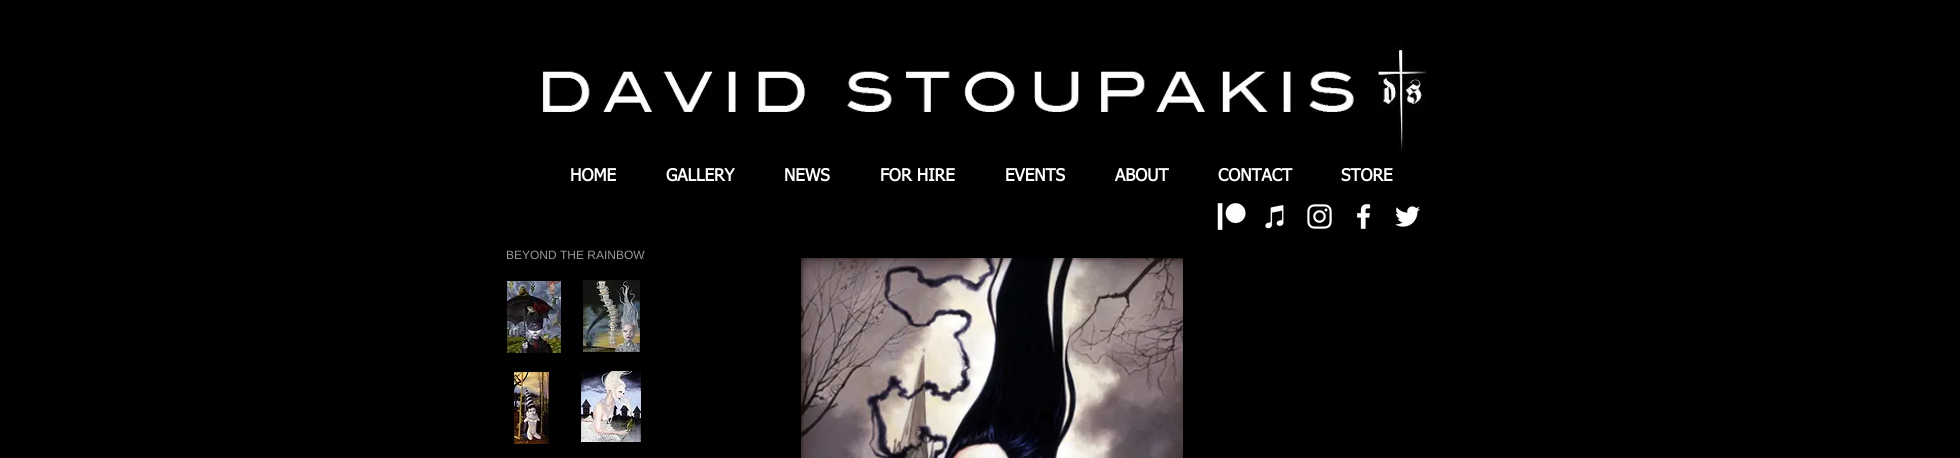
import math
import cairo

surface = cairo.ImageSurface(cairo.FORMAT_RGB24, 1960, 458)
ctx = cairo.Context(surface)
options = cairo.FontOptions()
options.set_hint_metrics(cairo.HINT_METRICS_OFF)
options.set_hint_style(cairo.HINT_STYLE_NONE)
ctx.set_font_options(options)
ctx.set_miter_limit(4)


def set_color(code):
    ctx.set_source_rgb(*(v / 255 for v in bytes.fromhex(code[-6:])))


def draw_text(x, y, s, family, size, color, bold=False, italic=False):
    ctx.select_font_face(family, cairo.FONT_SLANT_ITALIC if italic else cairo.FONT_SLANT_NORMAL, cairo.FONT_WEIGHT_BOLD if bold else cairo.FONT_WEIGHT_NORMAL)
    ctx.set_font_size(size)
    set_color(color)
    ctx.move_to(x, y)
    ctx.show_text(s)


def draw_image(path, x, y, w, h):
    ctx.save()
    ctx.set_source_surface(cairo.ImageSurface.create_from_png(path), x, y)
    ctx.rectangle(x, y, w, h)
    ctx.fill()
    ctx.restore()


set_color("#000000")
ctx.paint()
draw_image("assets/img1.png", 542, 44, 885, 107)
draw_text(570, 181, "HOME", "tahoma", 17, "#ffffff", bold=True)
draw_text(666, 181, "GALLERY", "tahoma", 17, "#ffffff", bold=True)
draw_text(784, 181, "NEWS", "tahoma", 17, "#ffffff", bold=True)
draw_text(880, 181, "FOR HIRE", "tahoma", 17, "#ffffff", bold=True)
draw_text(1005, 181, "EVENTS", "tahoma", 17, "#ffffff", bold=True)
draw_text(1115, 181, "ABOUT", "tahoma", 17, "#ffffff", bold=True)
draw_text(1218, 181, "CONTACT", "tahoma", 17, "#ffffff", bold=True)
draw_text(1341, 181, "STORE", "tahoma", 17, "#ffffff", bold=True)
draw_image("assets/img2.png", 1217, 203, 29, 27)
draw_image("assets/img3.png", 1265, 205, 19, 24)
draw_image("assets/img4.png", 1307, 204, 25, 25)
draw_image("assets/img5.png", 1356, 204, 15, 25)
draw_image("assets/img6.png", 1395, 206, 25, 21)
draw_text(506, 259, "BEYOND THE RAINBOW", "Liberation Sans", 12, "#999999")
draw_image("assets/img7.png", 507, 281, 54, 72)
draw_image("assets/img8.png", 583, 280, 57, 72)
draw_image("assets/img9.png", 801, 258, 382, 200)
draw_image("assets/img10.png", 514, 372, 35, 72)
draw_image("assets/img11.png", 581, 371, 60, 71)
surface.write_to_png("output.png")
